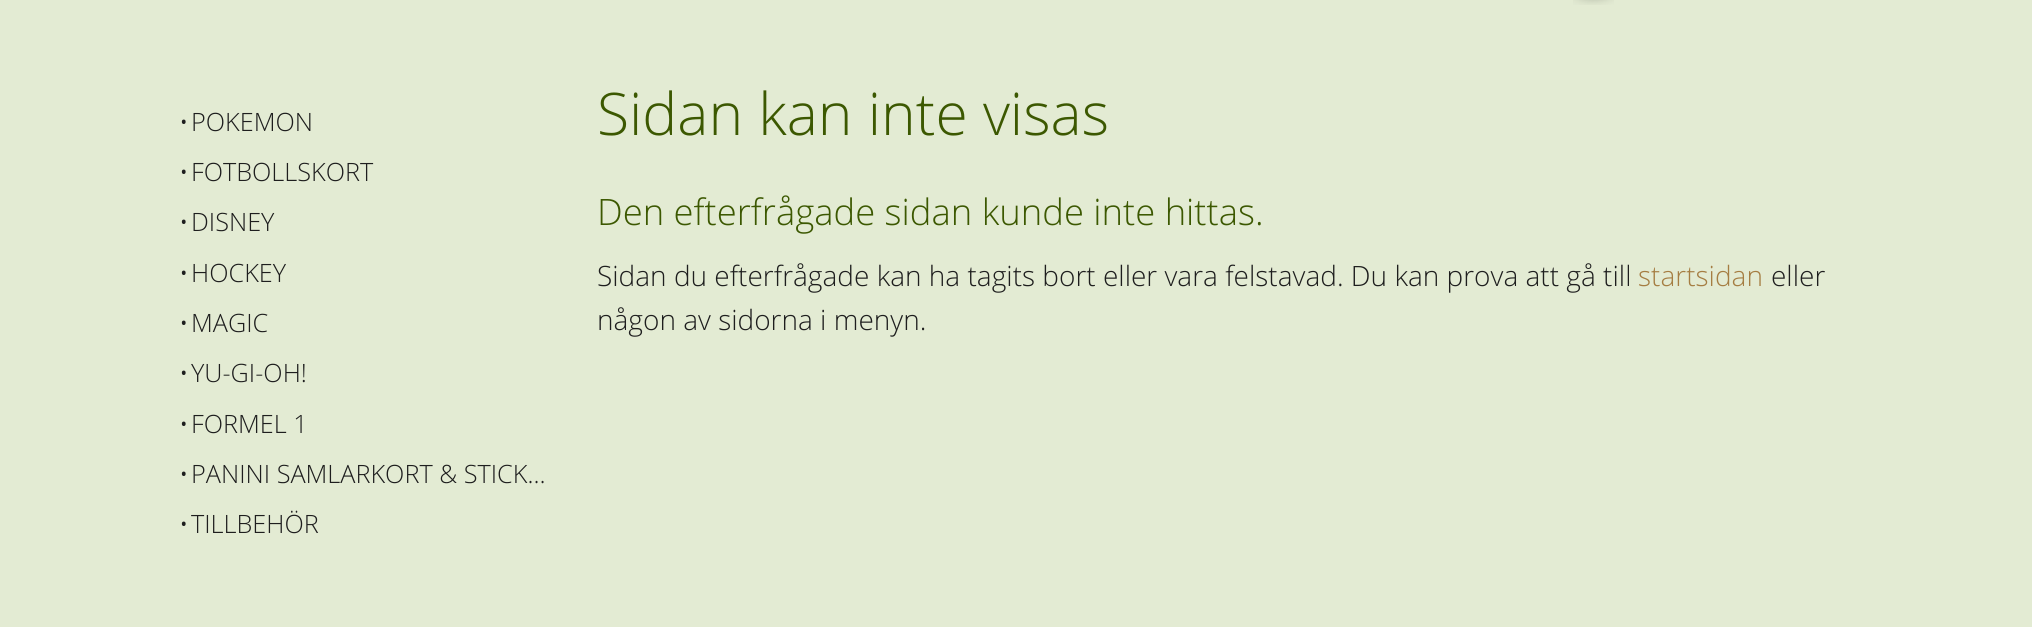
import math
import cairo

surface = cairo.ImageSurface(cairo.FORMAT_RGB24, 2032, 627)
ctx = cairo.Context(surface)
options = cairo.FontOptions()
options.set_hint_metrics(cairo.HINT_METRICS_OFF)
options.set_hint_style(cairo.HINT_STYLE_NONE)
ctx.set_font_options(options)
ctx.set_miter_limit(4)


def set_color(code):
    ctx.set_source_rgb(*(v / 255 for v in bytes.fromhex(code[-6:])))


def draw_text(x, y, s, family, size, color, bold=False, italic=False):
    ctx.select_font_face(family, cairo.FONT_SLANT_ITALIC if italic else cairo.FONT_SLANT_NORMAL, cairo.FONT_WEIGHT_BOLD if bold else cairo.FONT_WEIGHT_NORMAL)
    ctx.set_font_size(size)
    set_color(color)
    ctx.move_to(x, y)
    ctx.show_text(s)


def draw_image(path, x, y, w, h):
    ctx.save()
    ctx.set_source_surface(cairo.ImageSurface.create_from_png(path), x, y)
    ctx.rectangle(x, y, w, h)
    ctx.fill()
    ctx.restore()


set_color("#e3ebd3")
ctx.paint()
draw_image("assets/img1.png", 1573, 0, 41, 5)
draw_text(179, 131, "•", "Open Sans Light", 25.25, "#1e1e1e")
draw_text(191, 131, "POKEMON", "Open Sans Light", 25.25, "#1e1e1e")
draw_text(179, 181, "•", "Open Sans Light", 25.25, "#1e1e1e")
draw_text(191, 181, "FOTBOLLSKORT", "Open Sans Light", 25.25, "#1e1e1e")
draw_text(179, 231, "•", "Open Sans Light", 25.25, "#1e1e1e")
draw_text(191, 231, "DISNEY", "Open Sans Light", 25.25, "#1e1e1e")
draw_text(179, 282, "•", "Open Sans Light", 25.25, "#1e1e1e")
draw_text(191, 282, "HOCKEY", "Open Sans Light", 25.25, "#1e1e1e")
draw_text(179, 332, "•", "Open Sans Light", 25.25, "#1e1e1e")
draw_text(191, 332, "MAGIC", "Open Sans Light", 25.25, "#1e1e1e")
draw_text(179, 382, "•", "Open Sans Light", 25.25, "#1e1e1e")
draw_text(191, 382, "YU-GI-OH!", "Open Sans Light", 25.25, "#1e1e1e")
draw_text(179, 433, "•", "Open Sans Light", 25.25, "#1e1e1e")
draw_text(191, 433, "FORMEL 1", "Open Sans Light", 25.25, "#1e1e1e")
draw_text(179, 483, "•", "Open Sans Light", 25.25, "#1e1e1e")
draw_text(191, 483, "PANINI SAMLARKORT & STICK…", "Open Sans Light", 25.25, "#1e1e1e")
draw_text(179, 533, "•", "Open Sans Light", 25.25, "#1e1e1e")
draw_text(191, 533, "TILLBEHÖR", "Open Sans Light", 25.25, "#1e1e1e")
draw_text(597, 135, "Sidan kan inte visas", "Open Sans Light", 58.75, "#3c5801")
draw_text(597, 225, "Den efterfrågade sidan kunde inte hittas.", "Open Sans Light", 36.4, "#3c5801")
draw_text(597, 286, "Sidan du efterfrågade kan ha tagits bort eller vara felstavad. Du kan prova att gå till", "Open Sans Light", 28, "#1e1e1e")
draw_text(1638, 286, "startsidan", "Open Sans Light", 28, "#a57d42")
draw_text(1771, 286, "eller", "Open Sans Light", 28, "#1e1e1e")
draw_text(597, 330, "någon av sidorna i menyn.", "Open Sans Light", 28, "#1e1e1e")
surface.write_to_png("output.png")
